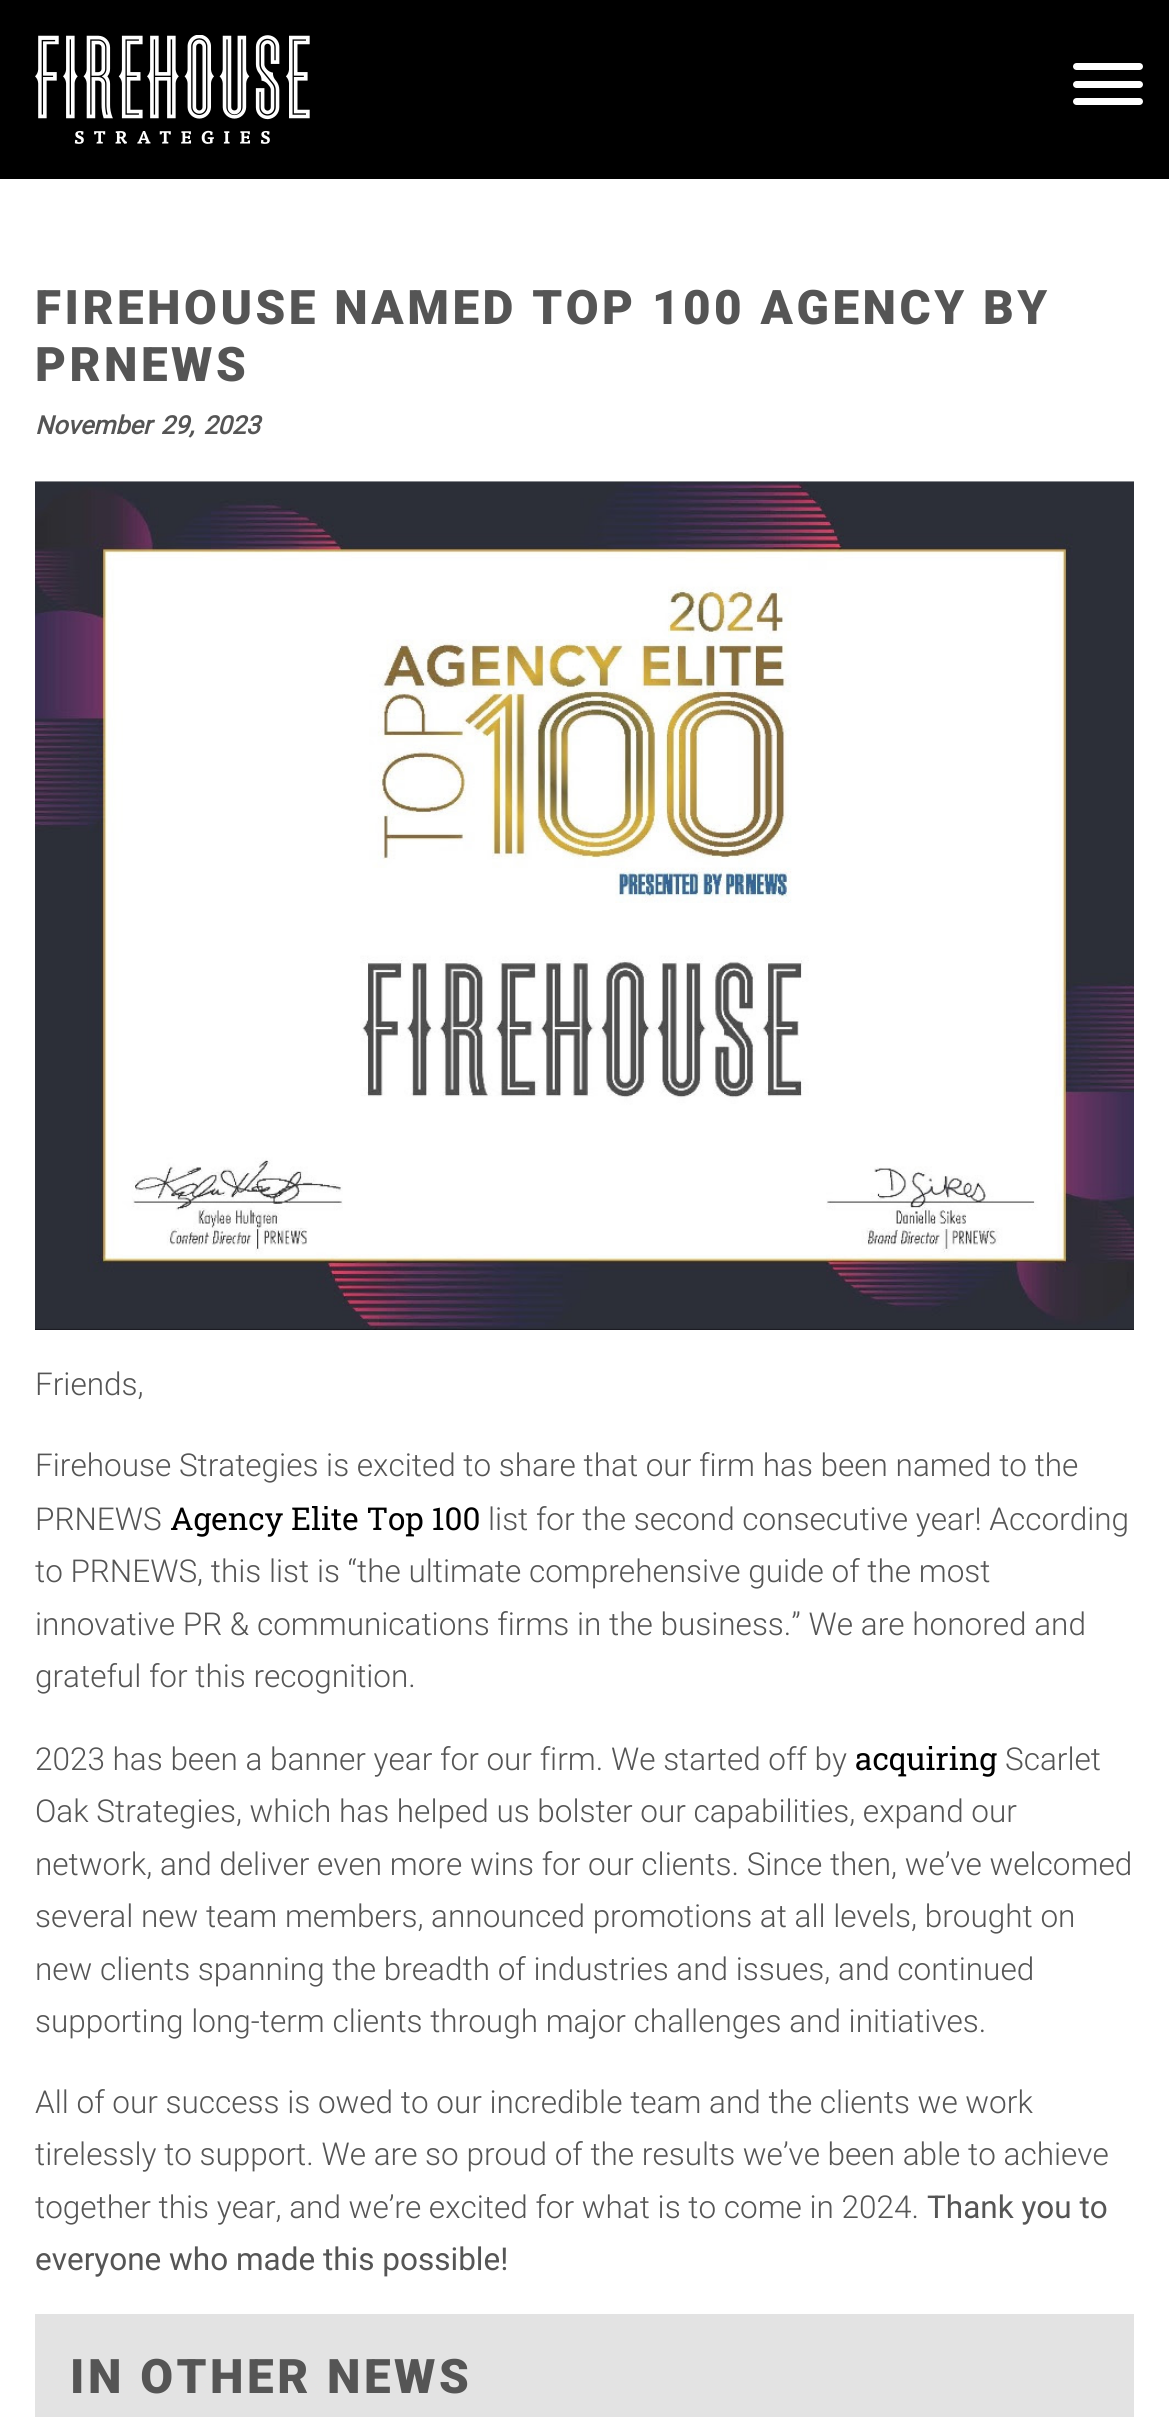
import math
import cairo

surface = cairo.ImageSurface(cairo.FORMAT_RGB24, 1169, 2417)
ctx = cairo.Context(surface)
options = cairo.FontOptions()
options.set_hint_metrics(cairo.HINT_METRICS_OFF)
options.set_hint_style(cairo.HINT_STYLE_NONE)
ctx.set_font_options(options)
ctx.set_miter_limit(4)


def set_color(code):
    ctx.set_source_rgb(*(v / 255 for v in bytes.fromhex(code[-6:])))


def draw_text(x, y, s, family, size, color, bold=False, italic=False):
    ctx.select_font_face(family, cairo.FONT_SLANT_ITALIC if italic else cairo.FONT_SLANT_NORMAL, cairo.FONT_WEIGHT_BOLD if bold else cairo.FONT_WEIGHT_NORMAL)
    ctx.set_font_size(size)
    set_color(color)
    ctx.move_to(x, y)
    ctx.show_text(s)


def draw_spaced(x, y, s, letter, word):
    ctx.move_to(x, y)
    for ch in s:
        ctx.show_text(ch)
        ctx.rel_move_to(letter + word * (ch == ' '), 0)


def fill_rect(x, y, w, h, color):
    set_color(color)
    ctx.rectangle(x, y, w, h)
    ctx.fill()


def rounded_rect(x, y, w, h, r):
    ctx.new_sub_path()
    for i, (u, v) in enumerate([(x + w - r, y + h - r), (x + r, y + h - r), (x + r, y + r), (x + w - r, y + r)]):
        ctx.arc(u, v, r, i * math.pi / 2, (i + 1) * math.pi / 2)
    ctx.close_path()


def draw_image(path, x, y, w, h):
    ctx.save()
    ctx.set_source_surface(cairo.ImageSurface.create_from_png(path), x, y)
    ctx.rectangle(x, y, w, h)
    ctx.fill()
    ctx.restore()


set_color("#ffffff")
ctx.paint()
fill_rect(0, 0, 1169, 179, "#000000")
draw_image("assets/img1.png", 35, 35, 275, 109)
set_color("#ffffff")
rounded_rect(1073, 98, 70, 7, 3.5)
ctx.fill()
rounded_rect(1073, 63, 70, 7, 3.5)
ctx.fill()
rounded_rect(1073, 81, 70, 7, 3.5)
ctx.fill()
ctx.select_font_face("Roboto Black")
ctx.set_font_size(47.6)
set_color("#555555")
draw_spaced(35, 324, "FIREHOUSE NAMED TOP 100 AGENCY BY", 3.5, 0)
draw_spaced(35, 381, "PRNEWS", 3.5, 0)
ctx.select_font_face("Roboto", cairo.FONT_SLANT_ITALIC, cairo.FONT_WEIGHT_BOLD)
ctx.set_font_size(25.25)
draw_spaced(35, 434, "November 29, 2023", 0, 3)
draw_image("assets/img2.png", 35, 481, 1099, 849)
draw_text(35, 1395, "Friends,", "Roboto Light", 31.5, "#555555")
draw_text(35, 1476, "Firehouse Strategies is excited to share that our firm has been named to the", "Roboto Light", 31.5, "#555555")
draw_text(35, 1530, "PRNEWS", "Roboto Light", 31.5, "#555555")
draw_text(170, 1530, "Agency Elite Top 100", "Roboto Slab", 31.5, "#000000")
draw_text(488, 1530, "list for the second consecutive year! According", "Roboto Light", 31.5, "#555555")
draw_text(35, 1582, "to PRNEWS, this list is “the ultimate comprehensive guide of the most", "Roboto Light", 31.5, "#555555")
draw_text(35, 1635, "innovative PR & communications firms in the business.” We are honored and", "Roboto Light", 31.5, "#555555")
draw_text(35, 1687, "grateful for this recognition.", "Roboto Light", 31.5, "#555555")
draw_text(35, 1770, "2023 has been a banner year for our firm. We started off by", "Roboto Light", 31.5, "#555555")
draw_text(855, 1770, "acquiring", "Roboto Slab", 31.5, "#000000")
draw_text(1005, 1770, "Scarlet", "Roboto Light", 31.5, "#555555")
draw_text(35, 1822, "Oak Strategies, which has helped us bolster our capabilities, expand our", "Roboto Light", 31.5, "#555555")
draw_text(35, 1875, "network, and deliver even more wins for our clients. Since then, we’ve welcomed", "Roboto Light", 31.5, "#555555")
draw_text(35, 1927, "several new team members, announced promotions at all levels, brought on", "Roboto Light", 31.5, "#555555")
draw_text(35, 1980, "new clients spanning the breadth of industries and issues, and continued", "Roboto Light", 31.5, "#555555")
draw_text(35, 2032, "supporting long-term clients through major challenges and initiatives.", "Roboto Light", 31.5, "#555555")
draw_text(35, 2113, "All of our success is owed to our incredible team and the clients we work", "Roboto Light", 31.5, "#555555")
draw_text(35, 2165, "tirelessly to support. We are so proud of the results we’ve been able to achieve", "Roboto Light", 31.5, "#555555")
draw_text(35, 2218, "together this year, and we’re excited for what is to come in 2024.", "Roboto Light", 31.5, "#555555")
draw_text(927, 2218, "Thank you to", "Roboto", 31.5, "#555555")
draw_text(35, 2270, "everyone who made this possible!", "Roboto", 31.5, "#555555")
fill_rect(35, 2314, 1099, 103, "#e3e3e3")
ctx.select_font_face("Roboto Black")
ctx.set_font_size(47.6)
set_color("#555555")
draw_spaced(70, 2393, "IN OTHER NEWS", 3.5, 0)
surface.write_to_png("output.png")
